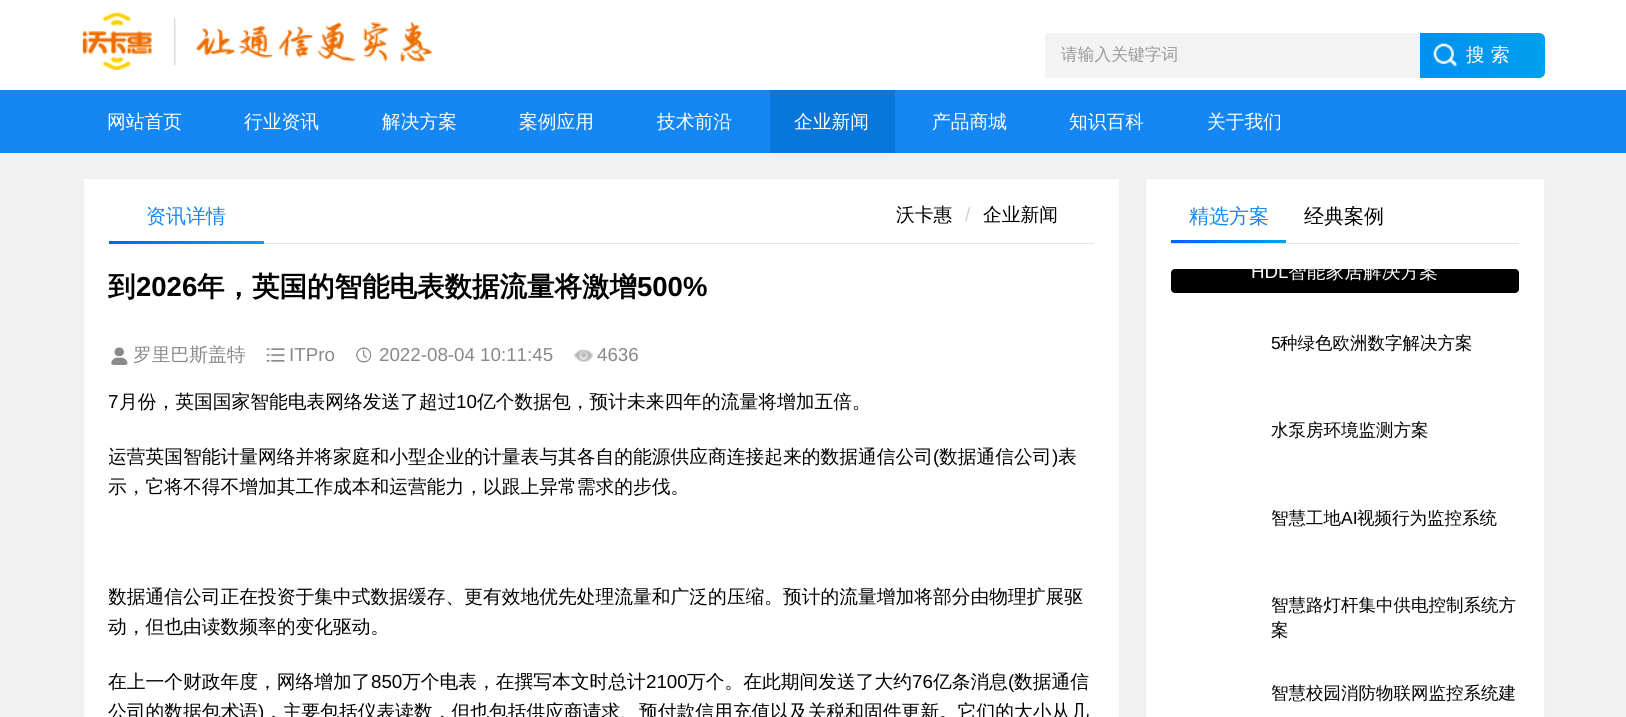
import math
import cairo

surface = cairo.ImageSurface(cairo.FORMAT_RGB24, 1626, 717)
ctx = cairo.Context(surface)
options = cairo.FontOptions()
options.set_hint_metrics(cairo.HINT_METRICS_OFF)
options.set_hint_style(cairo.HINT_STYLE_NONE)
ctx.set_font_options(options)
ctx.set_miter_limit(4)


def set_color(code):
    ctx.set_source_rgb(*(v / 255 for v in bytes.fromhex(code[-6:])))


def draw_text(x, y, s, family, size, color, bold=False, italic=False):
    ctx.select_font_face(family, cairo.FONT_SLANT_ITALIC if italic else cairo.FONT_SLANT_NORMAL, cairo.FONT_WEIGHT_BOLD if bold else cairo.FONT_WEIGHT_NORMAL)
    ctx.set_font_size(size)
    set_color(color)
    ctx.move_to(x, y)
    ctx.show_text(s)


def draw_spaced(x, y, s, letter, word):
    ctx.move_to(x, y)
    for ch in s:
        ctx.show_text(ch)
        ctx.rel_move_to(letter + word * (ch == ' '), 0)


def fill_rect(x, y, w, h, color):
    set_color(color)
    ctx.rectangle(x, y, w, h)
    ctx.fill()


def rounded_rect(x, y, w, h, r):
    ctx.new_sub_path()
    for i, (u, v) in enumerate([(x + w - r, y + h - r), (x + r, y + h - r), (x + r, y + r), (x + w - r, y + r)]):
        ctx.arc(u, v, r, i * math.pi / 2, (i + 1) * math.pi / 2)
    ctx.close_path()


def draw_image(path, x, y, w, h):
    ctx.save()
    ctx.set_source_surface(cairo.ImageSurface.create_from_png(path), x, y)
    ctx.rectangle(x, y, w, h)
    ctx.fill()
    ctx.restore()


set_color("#f1f1f1")
ctx.paint()
fill_rect(0, 0, 1626, 90, "#ffffff")
draw_image("assets/img1.png", 82, 12, 351, 58)
gradient = cairo.LinearGradient(1045, 55, 1545, 55)
gradient.add_color_stop_rgba(0, 0, 0.384, 1, 1)
gradient.add_color_stop_rgba(1, 0, 0.627, 0.925, 1)
ctx.set_source(gradient)
ctx.new_path()
ctx.move_to(1045, 33)
ctx.line_to(1539, 33)
ctx.curve_to(1542.5, 33, 1545, 35.5, 1545, 39)
ctx.line_to(1545, 72)
ctx.curve_to(1545, 75.5, 1542.5, 78, 1539, 78)
ctx.line_to(1045, 78)
ctx.close_path()
ctx.fill()
fill_rect(1045, 33, 375, 45, "#f3f3f3")
draw_text(1061, 60, "请输入关键字词", "WenQuanYi Zen Hei Medium", 16.75, "#999999")
draw_image("assets/img2.png", 1433, 43, 25, 24)
ctx.set_font_size(18.75)
set_color("#ffffff")
draw_spaced(1466, 61, "搜索", 6, 0)
fill_rect(0, 90, 1626, 63, "#1487f4")
draw_text(107, 128, "网站首页", "WenQuanYi Zen Hei Medium", 18.75, "#ffffff")
draw_text(244, 128, "行业资讯", "WenQuanYi Zen Hei Medium", 18.75, "#ffffff")
draw_text(382, 128, "解决方案", "WenQuanYi Zen Hei Medium", 18.75, "#ffffff")
draw_text(519, 128, "案例应用", "WenQuanYi Zen Hei Medium", 18.75, "#ffffff")
draw_text(657, 128, "技术前沿", "WenQuanYi Zen Hei Medium", 18.75, "#ffffff")
fill_rect(770, 90, 125, 63, "#0976dc")
draw_text(794, 128, "企业新闻", "WenQuanYi Zen Hei Medium", 18.75, "#ffffff")
draw_text(932, 128, "产品商城", "WenQuanYi Zen Hei Medium", 18.75, "#ffffff")
draw_text(1069, 128, "知识百科", "WenQuanYi Zen Hei Medium", 18.75, "#ffffff")
draw_text(1207, 128, "关于我们", "WenQuanYi Zen Hei Medium", 18.75, "#ffffff")
ctx.rectangle(83.5, 178.5, 1036, 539)
ctx.fill_preserve()
set_color("#eeeeee")
ctx.set_line_width(1)
ctx.stroke()
fill_rect(264, 243, 830, 1, "#e4e3e3")
draw_text(146, 223, "资讯详情", "WenQuanYi Zen Hei Medium", 20, "#1487f4")
gradient = cairo.LinearGradient(109, 243, 264, 243)
gradient.add_color_stop_rgba(0, 0, 0.384, 1, 1)
gradient.add_color_stop_rgba(1, 0, 0.627, 0.925, 1)
ctx.set_source(gradient)
ctx.rectangle(109, 241, 155, 3)
ctx.fill()
draw_text(896, 221, "沃卡惠", "WenQuanYi Zen Hei Medium", 18.75, "#000000")
draw_text(965, 221, "/", "Liberation Sans", 18.75, "#cccccc")
draw_text(983, 221, "企业新闻", "WenQuanYi Zen Hei Medium", 18.75, "#000000")
draw_text(108, 296, "到", "WenQuanYi Zen Hei", 27.5, "#000000", bold=True)
draw_text(136, 296, "2026", "Liberation Sans", 27.5, "#000000", bold=True)
draw_text(197, 296, "年，英国的智能电表数据流量将激增", "WenQuanYi Zen Hei", 27.5, "#000000", bold=True)
draw_text(637, 296, "500%", "Liberation Sans", 27.5, "#000000", bold=True)
draw_image("assets/img3.png", 111, 347, 17, 18)
draw_text(133, 361, "罗里巴斯盖特", "WenQuanYi Zen Hei Medium", 18.75, "#888888")
draw_image("assets/img4.png", 266, 348, 19, 14)
draw_text(289, 361, "ITPro", "Liberation Sans", 18.75, "#888888")
draw_image("assets/img5.png", 356, 347, 16, 16)
draw_text(379, 361, "2022-08-04 10:11:45", "Liberation Sans", 18.75, "#888888")
draw_image("assets/img6.png", 573, 349, 21, 14)
draw_text(597, 361, "4636", "Liberation Sans", 18.75, "#888888")
draw_text(108, 408, "7", "Liberation Sans", 18.75, "#000000")
draw_text(119, 408, "月份，英国国家智能电表网络发送了超过", "WenQuanYi Zen Hei Medium", 18.75, "#000000")
draw_text(456, 408, "10", "Liberation Sans", 18.75, "#000000")
draw_text(477, 408, "亿个数据包，预计未来四年的流量将增加五倍。", "WenQuanYi Zen Hei Medium", 18.75, "#000000")
ctx.save()
ctx.rectangle(109, 386, 985, 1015)
ctx.clip()
draw_text(108, 463, "运营英国智能计量网络并将家庭和小型企业的计量表与其各自的能源供应商连接起来的数据通信公司", "WenQuanYi Zen Hei Medium", 18.75, "#000000")
ctx.restore()
draw_text(933, 463, "(", "Liberation Sans", 18.75, "#000000")
draw_text(939, 463, "数据通信公司", "WenQuanYi Zen Hei Medium", 18.75, "#000000")
draw_text(1052, 463, ")", "Liberation Sans", 18.75, "#000000")
draw_text(1058, 463, "表", "WenQuanYi Zen Hei Medium", 18.75, "#000000")
draw_text(108, 493, "示，它将不得不增加其工作成本和运营能力，以跟上异常需求的步伐。", "WenQuanYi Zen Hei Medium", 18.75, "#000000")
ctx.save()
ctx.rectangle(109, 386, 985, 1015)
ctx.clip()
draw_text(108, 603, "数据通信公司正在投资于集中式数据缓存、更有效地优先处理流量和广泛的压缩。预计的流量增加将部分由物理扩展驱", "WenQuanYi Zen Hei Medium", 18.75, "#000000")
ctx.restore()
draw_text(108, 633, "动，但也由读数频率的变化驱动。", "WenQuanYi Zen Hei Medium", 18.75, "#000000")
draw_text(108, 688, "在上一个财政年度，网络增加了", "WenQuanYi Zen Hei Medium", 18.75, "#000000")
draw_text(371, 688, "850", "Liberation Sans", 18.75, "#000000")
draw_text(402, 688, "万个电表，在撰写本文时总计", "WenQuanYi Zen Hei Medium", 18.75, "#000000")
draw_text(646, 688, "2100", "Liberation Sans", 18.75, "#000000")
draw_text(687, 688, "万个。在此期间发送了大约", "WenQuanYi Zen Hei Medium", 18.75, "#000000")
draw_text(912, 688, "76", "Liberation Sans", 18.75, "#000000")
draw_text(933, 688, "亿条消息", "WenQuanYi Zen Hei Medium", 18.75, "#000000")
draw_text(1008, 688, "(", "Liberation Sans", 18.75, "#000000")
draw_text(1014, 688, "数据通信", "WenQuanYi Zen Hei Medium", 18.75, "#000000")
draw_text(108, 718, "公司的数据包术语", "WenQuanYi Zen Hei Medium", 18.75, "#000000")
draw_text(258, 718, ")", "Liberation Sans", 18.75, "#000000")
draw_text(264, 718, "，主要包括仪表读数，但也包括供应商请求、预付款信用充值以及关税和固件更新。它们的大小从几", "WenQuanYi Zen Hei Medium", 18.75, "#000000")
set_color("#ffffff")
ctx.rectangle(1145.5, 178.5, 399, 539)
ctx.fill_preserve()
set_color("#eeeeee")
ctx.stroke()
fill_rect(1171, 243, 348, 1, "#e4e3e3")
draw_text(1189, 223, "精选方案", "WenQuanYi Zen Hei Medium", 20, "#1487f4")
gradient = cairo.LinearGradient(1171, 241, 1286, 241)
gradient.add_color_stop_rgba(0, 0, 0.384, 1, 1)
gradient.add_color_stop_rgba(1, 0, 0.627, 0.925, 1)
ctx.set_source(gradient)
ctx.rectangle(1171, 240, 115, 3)
ctx.fill()
draw_text(1304, 223, "经典案例", "WenQuanYi Zen Hei Medium", 20, "#000000")
rounded_rect(1171, 269, 348, 24, 4)
ctx.fill()
ctx.save()
rounded_rect(1171, 269, 348, 24, 4)
ctx.clip()
draw_text(1251, 278, "HDL", "Liberation Sans", 18.75, "#ffffff")
draw_text(1288, 278, "智能家居解决方案", "WenQuanYi Zen Hei Medium", 18.75, "#ffffff")
ctx.restore()
draw_text(1271, 349, "5", "Liberation Sans", 17.5, "#000000")
draw_text(1280, 349, "种绿色欧洲数字解决方案", "WenQuanYi Zen Hei Medium", 17.5, "#000000")
draw_text(1271, 436, "水泵房环境监测方案", "WenQuanYi Zen Hei Medium", 17.5, "#000000")
draw_text(1271, 524, "智慧工地", "WenQuanYi Zen Hei Medium", 17.5, "#000000")
draw_text(1341, 524, "AI", "Liberation Sans", 17.5, "#000000")
draw_text(1357, 524, "视频行为监控系统", "WenQuanYi Zen Hei Medium", 17.5, "#000000")
draw_text(1271, 611, "智慧路灯杆集中供电控制系统方", "WenQuanYi Zen Hei Medium", 17.5, "#000000")
draw_text(1271, 636, "案", "WenQuanYi Zen Hei Medium", 17.5, "#000000")
draw_text(1271, 699, "智慧校园消防物联网监控系统建", "WenQuanYi Zen Hei Medium", 17.5, "#000000")
surface.write_to_png("output.png")
